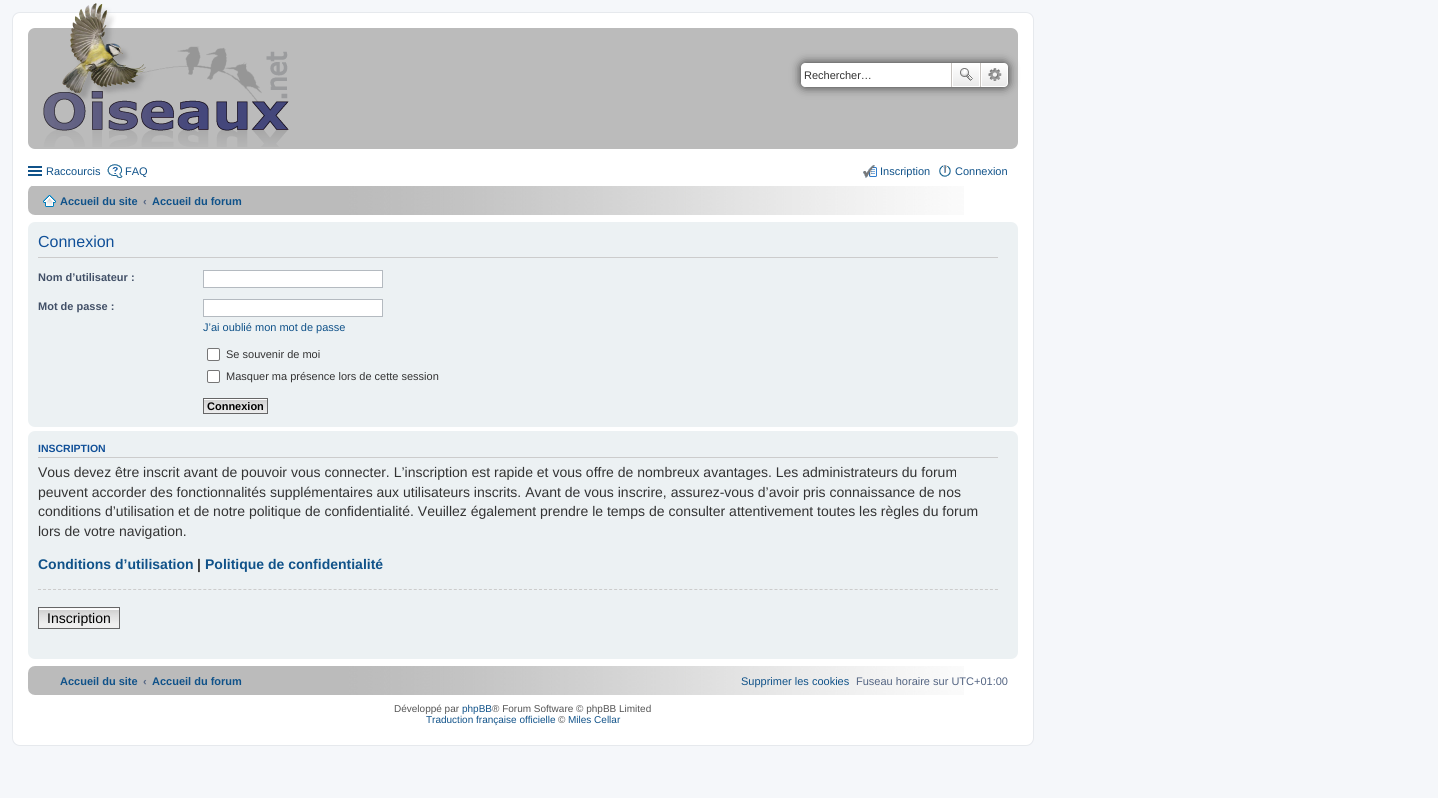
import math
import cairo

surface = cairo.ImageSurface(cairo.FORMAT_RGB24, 1438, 798)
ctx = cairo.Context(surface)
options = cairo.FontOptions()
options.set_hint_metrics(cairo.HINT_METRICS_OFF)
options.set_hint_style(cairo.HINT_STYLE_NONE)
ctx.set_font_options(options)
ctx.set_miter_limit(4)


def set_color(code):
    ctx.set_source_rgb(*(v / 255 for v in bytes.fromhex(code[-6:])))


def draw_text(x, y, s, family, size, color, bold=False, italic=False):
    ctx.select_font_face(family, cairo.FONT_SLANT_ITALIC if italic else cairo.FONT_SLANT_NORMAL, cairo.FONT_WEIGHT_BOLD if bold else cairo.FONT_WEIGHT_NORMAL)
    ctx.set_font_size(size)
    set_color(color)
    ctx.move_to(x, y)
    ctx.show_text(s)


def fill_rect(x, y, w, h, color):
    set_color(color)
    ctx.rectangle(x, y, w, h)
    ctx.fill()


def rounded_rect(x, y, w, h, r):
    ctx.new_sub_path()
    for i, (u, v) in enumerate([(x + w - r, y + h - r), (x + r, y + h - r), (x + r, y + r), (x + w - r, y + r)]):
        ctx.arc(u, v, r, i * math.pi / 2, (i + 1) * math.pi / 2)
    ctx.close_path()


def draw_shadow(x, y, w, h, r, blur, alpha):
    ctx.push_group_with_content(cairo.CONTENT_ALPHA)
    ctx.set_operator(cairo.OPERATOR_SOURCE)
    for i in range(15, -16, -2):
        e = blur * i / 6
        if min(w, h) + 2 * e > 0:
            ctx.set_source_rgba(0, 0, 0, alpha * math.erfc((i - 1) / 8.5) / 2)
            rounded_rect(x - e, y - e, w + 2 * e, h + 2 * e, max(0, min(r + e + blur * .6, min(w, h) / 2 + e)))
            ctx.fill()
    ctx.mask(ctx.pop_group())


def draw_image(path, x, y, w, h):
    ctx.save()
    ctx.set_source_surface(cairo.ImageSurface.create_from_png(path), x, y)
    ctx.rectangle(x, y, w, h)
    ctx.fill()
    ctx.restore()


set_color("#f5f7fa")
ctx.paint()
set_color("#ffffff")
rounded_rect(12.5, 12.5, 1021, 733, 7.5)
ctx.fill_preserve()
set_color("#e6e9ed")
ctx.set_line_width(1)
ctx.stroke()
set_color("#bbbbbb")
rounded_rect(28, 28, 990, 121, 7)
ctx.fill()
draw_image("assets/img1.png", 43, 3, 246, 144)
set_color("#333333")
draw_shadow(801, 63, 207, 24, 4, 5, 1)
set_color("#ffffff")
ctx.new_path()
ctx.move_to(805, 63)
ctx.line_to(951, 63)
ctx.line_to(951, 87)
ctx.line_to(805, 87)
ctx.curve_to(803, 87, 801, 85, 801, 83)
ctx.line_to(801, 67)
ctx.curve_to(801, 65, 803, 63, 805, 63)
ctx.close_path()
ctx.fill()
draw_text(804, 79, "Rechercher…", "Liberation Sans", 11, "#333333")
gradient = cairo.LinearGradient(966, 63, 966, 87)
gradient.add_color_stop_rgba(0, 1, 1, 1, 1)
gradient.add_color_stop_rgba(1, 0.914, 0.914, 0.914, 1)
ctx.set_source(gradient)
ctx.rectangle(953, 64, 26, 22)
ctx.fill()
ctx.rectangle(952.5, 63.5, 27, 23)
set_color("#ffffff")
ctx.stroke()
fill_rect(980, 63, 1, 24, "#c7c3bf")
fill_rect(951, 63, 1, 24, "#c7c3bf")
draw_image("assets/img2.png", 960, 68, 13, 13)
gradient = cairo.LinearGradient(995, 63, 995, 87)
gradient.add_color_stop_rgba(0, 1, 1, 1, 1)
gradient.add_color_stop_rgba(1, 0.914, 0.914, 0.914, 1)
ctx.set_source(gradient)
ctx.new_path()
ctx.move_to(981.5, 63.5)
ctx.line_to(1004, 63.5)
ctx.curve_to(1006, 63.5, 1007.5, 65, 1007.5, 67)
ctx.line_to(1007.5, 83)
ctx.curve_to(1007.5, 85, 1006, 86.5, 1004, 86.5)
ctx.line_to(981.5, 86.5)
ctx.close_path()
ctx.fill_preserve()
set_color("#ffffff")
ctx.stroke()
draw_image("assets/img3.png", 988, 68, 14, 13)
fill_rect(28, 166, 14, 2, "#105289")
fill_rect(28, 170, 14, 2, "#105289")
fill_rect(28, 174, 14, 2, "#105289")
draw_text(46, 175, "Raccourcis", "Liberation Sans", 11, "#105289")
draw_image("assets/img4.png", 107, 164, 16, 14)
draw_text(125, 175, "FAQ", "Liberation Sans", 11, "#105289")
draw_image("assets/img5.png", 863, 165, 14, 13)
draw_text(880, 175, "Inscription", "Liberation Sans", 11, "#105289")
draw_image("assets/img6.png", 939, 165, 12, 12)
draw_text(955, 175, "Connexion", "Liberation Sans", 11, "#105289")
draw_image("assets/img7.png", 28, 185, 936, 30)
fill_rect(32, 185, 932, 1, "#ffffff")
draw_image("assets/img8.png", 43, 195, 13, 12)
draw_text(60, 205, "Accueil du site", "Liberation Sans", 11, "#105289", bold=True)
draw_text(143, 205, "‹", "Liberation Sans", 11, "#536482", bold=True)
draw_text(152, 205, "Accueil du forum", "Liberation Sans", 11, "#105289", bold=True)
set_color("#ecf1f3")
rounded_rect(28, 222, 990, 205, 7)
ctx.fill()
fill_rect(38, 257, 960, 1, "#cccccc")
draw_text(38, 247, "Connexion", "Liberation Sans", 16, "#115098")
draw_text(38, 281, "Nom d’utilisateur :", "Liberation Sans", 11, "#425067", bold=True)
set_color("#ffffff")
ctx.rectangle(203.5, 270.5, 179, 17)
ctx.fill_preserve()
set_color("#b4bac0")
ctx.stroke()
draw_text(38, 310, "Mot de passe :", "Liberation Sans", 11, "#425067", bold=True)
set_color("#ffffff")
ctx.rectangle(203.5, 299.5, 179, 17)
ctx.fill_preserve()
set_color("#b4bac0")
ctx.stroke()
draw_text(203, 331, "J’ai oublié mon mot de passe", "Liberation Sans", 11, "#105289")
set_color("#ffffff")
rounded_rect(207.5, 348.5, 12, 12, 1.5)
ctx.fill_preserve()
set_color("#767676")
ctx.stroke()
draw_text(226, 358, "Se souvenir de moi", "Liberation Sans", 11, "#333333")
set_color("#ffffff")
rounded_rect(207.5, 370.5, 12, 12, 1.5)
ctx.fill_preserve()
set_color("#767676")
ctx.stroke()
draw_text(226, 380, "Masquer ma présence lors de cette session", "Liberation Sans", 11, "#333333")
draw_image("assets/img9.png", 204, 399, 63, 14)
ctx.rectangle(203.5, 398.5, 64, 15)
set_color("#666666")
ctx.stroke()
draw_text(207, 410, "Connexion", "Liberation Sans", 11, "#000000", bold=True)
set_color("#ecf1f3")
rounded_rect(28, 431, 990, 228, 7)
ctx.fill()
fill_rect(38, 457, 960, 1, "#cccccc")
draw_text(38, 452, "INSCRIPTION", "Liberation Sans", 10.5, "#115098", bold=True)
draw_text(38, 477, "Vous devez être inscrit avant de pouvoir vous connecter. L’inscription est rapide et vous offre de nombreux avantages. Les administrateurs du forum", "Liberation Sans", 14, "#333333")
draw_text(38, 497, "peuvent accorder des fonctionnalités supplémentaires aux utilisateurs inscrits. Avant de vous inscrire, assurez-vous d’avoir pris connaissance de nos", "Liberation Sans", 14, "#333333")
draw_text(38, 516, "conditions d’utilisation et de notre politique de confidentialité. Veuillez également prendre le temps de consulter attentivement toutes les règles du forum", "Liberation Sans", 14, "#333333")
draw_text(38, 536, "lors de votre navigation.", "Liberation Sans", 14, "#333333")
draw_text(38, 569, "Conditions d’utilisation", "Liberation Sans", 14, "#105289", bold=True)
draw_text(197, 569, "|", "Liberation Sans", 14, "#333333", bold=True)
draw_text(205, 569, "Politique de confidentialité", "Liberation Sans", 14, "#105289", bold=True)
ctx.new_path()
ctx.move_to(38, 589.5)
ctx.line_to(998, 589.5)
set_color("#cccccc")
ctx.set_dash([3, 2.01])
ctx.stroke()
draw_image("assets/img10.png", 39, 609, 80, 19)
fill_rect(39, 608, 80, 1, "#fafafa")
ctx.rectangle(38.5, 607.5, 81, 21)
set_color("#666666")
ctx.set_dash([])
ctx.stroke()
draw_text(47, 623, "Inscription", "Liberation Sans", 14, "#000000")
draw_image("assets/img11.png", 28, 666, 936, 29)
draw_text(60, 685, "Accueil du site", "Liberation Sans", 11, "#105289", bold=True)
draw_text(143, 685, "‹", "Liberation Sans", 11, "#536482", bold=True)
draw_text(152, 685, "Accueil du forum", "Liberation Sans", 11, "#105289", bold=True)
draw_text(741, 685, "Supprimer les cookies", "Liberation Sans", 11, "#105289")
draw_text(856, 685, "Fuseau horaire sur UTC+01:00", "Liberation Sans", 11, "#536482")
draw_text(394, 712, "Développé par", "Liberation Sans", 10, "#555555")
draw_text(462, 712, "phpBB", "Liberation Sans", 10, "#105289")
draw_text(492, 712, "® Forum Software © phpBB Limited", "Liberation Sans", 10, "#555555")
draw_text(426, 723, "Traduction française officielle", "Liberation Sans", 10, "#105289")
draw_text(558, 723, "©", "Liberation Sans", 10, "#555555")
draw_text(568, 723, "Miles Cellar", "Liberation Sans", 10, "#105289")
surface.write_to_png("output.png")
